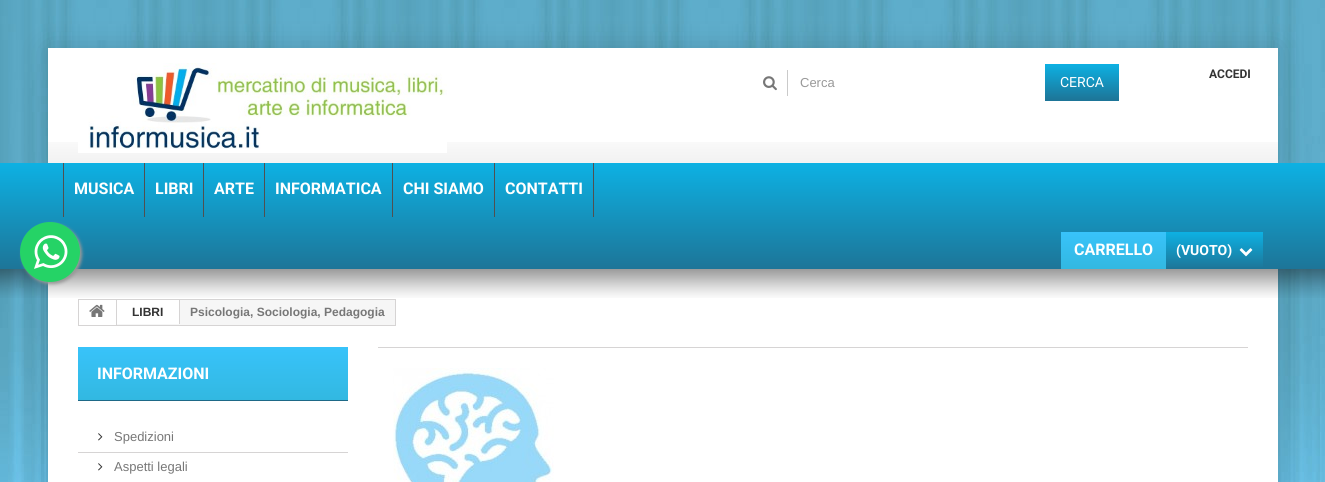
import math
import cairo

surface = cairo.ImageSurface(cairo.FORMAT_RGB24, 1325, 482)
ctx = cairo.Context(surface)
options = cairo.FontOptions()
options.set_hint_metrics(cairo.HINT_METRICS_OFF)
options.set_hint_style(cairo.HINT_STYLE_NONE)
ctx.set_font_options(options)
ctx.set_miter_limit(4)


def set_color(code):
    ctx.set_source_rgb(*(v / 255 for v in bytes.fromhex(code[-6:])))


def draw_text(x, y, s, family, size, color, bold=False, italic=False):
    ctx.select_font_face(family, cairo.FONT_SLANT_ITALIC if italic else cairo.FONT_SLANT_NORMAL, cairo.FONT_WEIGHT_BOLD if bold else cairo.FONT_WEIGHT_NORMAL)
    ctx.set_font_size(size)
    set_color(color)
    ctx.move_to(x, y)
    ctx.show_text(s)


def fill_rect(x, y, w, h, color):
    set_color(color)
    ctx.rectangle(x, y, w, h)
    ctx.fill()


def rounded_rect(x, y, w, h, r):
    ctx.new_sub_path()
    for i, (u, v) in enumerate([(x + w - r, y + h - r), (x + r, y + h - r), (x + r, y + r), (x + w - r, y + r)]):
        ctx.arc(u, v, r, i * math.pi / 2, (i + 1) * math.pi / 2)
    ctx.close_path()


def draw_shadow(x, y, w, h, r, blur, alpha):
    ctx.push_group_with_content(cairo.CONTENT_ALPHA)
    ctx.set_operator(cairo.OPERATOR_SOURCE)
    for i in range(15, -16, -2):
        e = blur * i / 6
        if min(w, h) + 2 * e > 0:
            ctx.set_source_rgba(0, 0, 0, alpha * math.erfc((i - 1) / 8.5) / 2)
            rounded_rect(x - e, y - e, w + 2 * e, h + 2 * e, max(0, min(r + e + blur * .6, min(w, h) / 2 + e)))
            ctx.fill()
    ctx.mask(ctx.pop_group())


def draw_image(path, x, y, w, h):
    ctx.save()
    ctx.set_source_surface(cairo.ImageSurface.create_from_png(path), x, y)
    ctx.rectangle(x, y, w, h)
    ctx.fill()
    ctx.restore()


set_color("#ffffff")
ctx.paint()
draw_image("assets/img1.png", 0, 0, 1325, 482)
set_color("#000000")
draw_shadow(48, 48, 1230, 115, 0, 14.5, 0.14)
fill_rect(48, 48, 1230, 115, "#ffffff")
draw_image("assets/img2.png", 48, 142, 1230, 21)
draw_image("assets/img3.png", 78, 63, 369, 90)
draw_text(1209, 78, "ACCEDI", "Roboto", 12, "#333333", bold=True)
fill_rect(787, 70, 1, 26, "#cacaca")
draw_image("assets/img4.png", 763, 76, 14, 15)
draw_text(800, 87, "Cerca", "Liberation Sans", 13, "#999999")
gradient = cairo.LinearGradient(1082, 64, 1082, 100)
gradient.add_color_stop_rgba(0, 0.051, 0.694, 0.89, 1)
gradient.add_color_stop_rgba(1, 0.114, 0.459, 0.596, 1)
ctx.set_source(gradient)
ctx.rectangle(1045, 64, 74, 36)
ctx.fill()
fill_rect(1045, 100, 74, 1, "#1d7598")
draw_text(1060, 87, "CERCA", "Roboto", 14, "#ffffff")
set_color("#000000")
draw_shadow(48, 269, 1230, 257, 0, 14.5, 0.14)
gradient = cairo.LinearGradient(663, 163, 663, 269)
gradient.add_color_stop_rgba(0, 0.051, 0.694, 0.89, 1)
gradient.add_color_stop_rgba(1, 0.114, 0.459, 0.596, 1)
ctx.set_source(gradient)
ctx.rectangle(0, 163, 1325, 106)
ctx.fill()
fill_rect(144, 163, 1, 54, "#505050")
fill_rect(63, 163, 1, 54, "#505050")
draw_text(74, 194, "MUSICA", "Roboto", 16, "#ffffff", bold=True)
fill_rect(203, 163, 1, 54, "#505050")
draw_text(155, 194, "LIBRI", "Roboto", 16, "#ffffff", bold=True)
fill_rect(264, 163, 1, 54, "#505050")
draw_text(214, 194, "ARTE", "Roboto", 16, "#ffffff", bold=True)
fill_rect(392, 163, 1, 54, "#505050")
draw_text(275, 194, "INFORMATICA", "Roboto", 16, "#ffffff", bold=True)
fill_rect(494, 163, 1, 54, "#505050")
draw_text(403, 194, "CHI SIAMO", "Roboto", 16, "#ffffff", bold=True)
fill_rect(593, 163, 1, 54, "#505050")
draw_text(505, 194, "CONTATTI", "Roboto", 16, "#ffffff", bold=True)
gradient = cairo.LinearGradient(1162, 232, 1162, 269)
gradient.add_color_stop_rgba(0, 0.051, 0.694, 0.89, 1)
gradient.add_color_stop_rgba(1, 0.114, 0.459, 0.596, 1)
ctx.set_source(gradient)
ctx.rectangle(1166, 232, 97, 35)
ctx.fill()
gradient = cairo.LinearGradient(1114, 232, 1114, 269)
gradient.add_color_stop_rgba(0, 0.22, 0.765, 0.98, 1)
gradient.add_color_stop_rgba(1, 0.196, 0.722, 0.882, 1)
ctx.set_source(gradient)
ctx.rectangle(1061, 232, 105, 37)
ctx.fill()
draw_text(1074, 255, "CARRELLO", "Roboto", 16, "#ffffff", bold=True)
draw_text(1176, 255, "(VUOTO)", "Roboto", 14, "#ffffff", bold=True)
draw_image("assets/img5.png", 1239, 248, 14, 9)
fill_rect(48, 269, 1230, 213, "#ffffff")
draw_image("assets/img6.png", 0, 269, 1325, 29)
set_color("#999999")
draw_shadow(22, 224, 60, 60, 30, 1.5, 1)
set_color("#25d366")
ctx.arc(50, 252, 30, 0, 2 * math.pi)
ctx.fill()
draw_image("assets/img7.png", 34, 235, 34, 34)
fill_rect(117, 300, 278, 25, "#f6f6f6")
ctx.rectangle(78.5, 299.5, 317, 26)
set_color("#d6d4d4")
ctx.set_line_width(1)
ctx.stroke()
fill_rect(116, 300, 1, 25, "#d6d4d4")
draw_image("assets/img8.png", 89, 304, 16, 13)
fill_rect(117, 300, 62, 24, "#ffffff")
fill_rect(179, 300, 1, 24, "#d6d4d4")
draw_text(132, 316, "LIBRI", "Liberation Sans", 12, "#333333", bold=True)
draw_text(190, 316, "Psicologia, Sociologia, Pedagogia", "Liberation Sans", 12, "#777777", bold=True)
gradient = cairo.LinearGradient(213, 347, 213, 400)
gradient.add_color_stop_rgba(0, 0.22, 0.765, 0.98, 1)
gradient.add_color_stop_rgba(1, 0.196, 0.722, 0.882, 1)
ctx.set_source(gradient)
ctx.rectangle(78, 347, 270, 53)
ctx.fill()
fill_rect(78, 400, 270, 1, "#1e6987")
draw_text(97, 379, "INFORMAZIONI", "Roboto", 16, "#ffffff", bold=True)
draw_image("assets/img9.png", 98, 433, 5, 8)
draw_text(114, 441, "Spedizioni", "Liberation Sans", 13, "#777777")
fill_rect(78, 452, 270, 1, "#d6d4d4")
draw_image("assets/img9.png", 98, 463, 5, 8)
draw_text(114, 471, "Aspetti legali", "Liberation Sans", 13, "#777777")
fill_rect(378, 347, 870, 1, "#d6d4d4")
draw_image("assets/img10.png", 393, 368, 161, 114)
surface.write_to_png("output.png")
